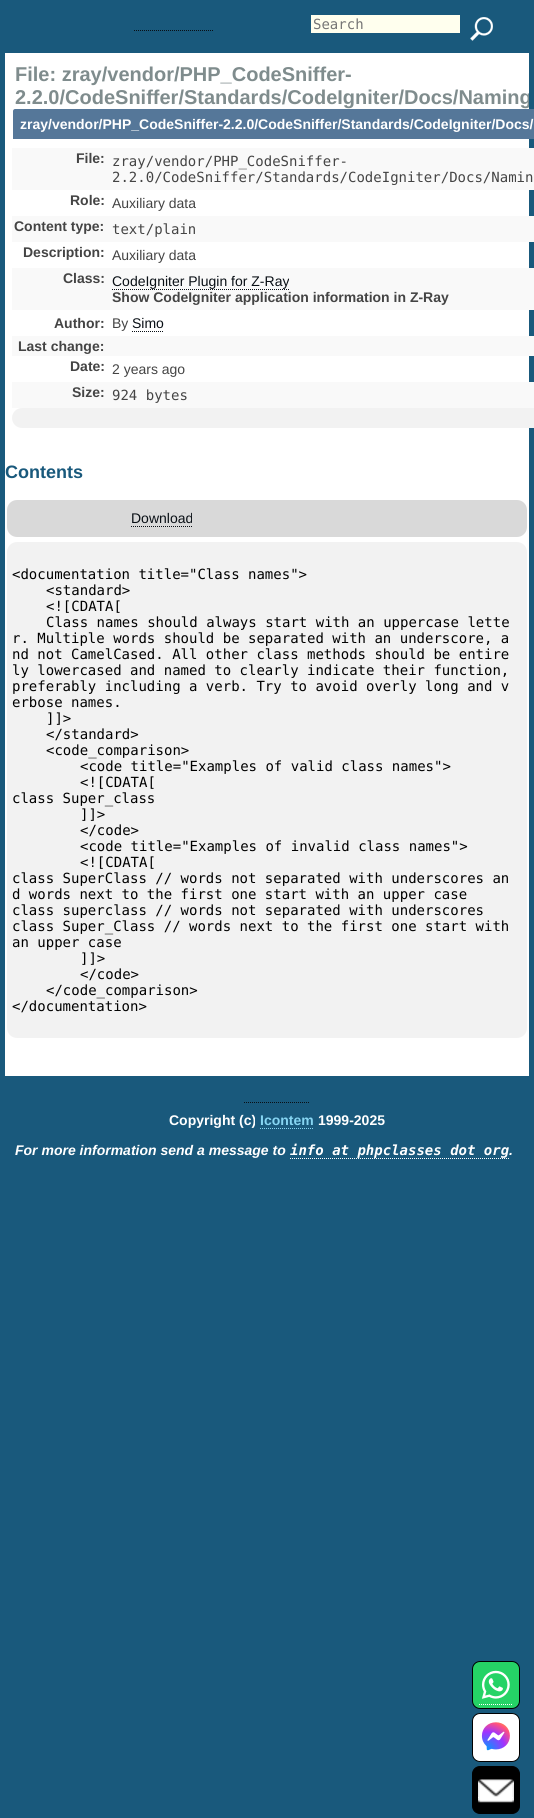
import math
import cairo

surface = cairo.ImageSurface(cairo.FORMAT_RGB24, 534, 1818)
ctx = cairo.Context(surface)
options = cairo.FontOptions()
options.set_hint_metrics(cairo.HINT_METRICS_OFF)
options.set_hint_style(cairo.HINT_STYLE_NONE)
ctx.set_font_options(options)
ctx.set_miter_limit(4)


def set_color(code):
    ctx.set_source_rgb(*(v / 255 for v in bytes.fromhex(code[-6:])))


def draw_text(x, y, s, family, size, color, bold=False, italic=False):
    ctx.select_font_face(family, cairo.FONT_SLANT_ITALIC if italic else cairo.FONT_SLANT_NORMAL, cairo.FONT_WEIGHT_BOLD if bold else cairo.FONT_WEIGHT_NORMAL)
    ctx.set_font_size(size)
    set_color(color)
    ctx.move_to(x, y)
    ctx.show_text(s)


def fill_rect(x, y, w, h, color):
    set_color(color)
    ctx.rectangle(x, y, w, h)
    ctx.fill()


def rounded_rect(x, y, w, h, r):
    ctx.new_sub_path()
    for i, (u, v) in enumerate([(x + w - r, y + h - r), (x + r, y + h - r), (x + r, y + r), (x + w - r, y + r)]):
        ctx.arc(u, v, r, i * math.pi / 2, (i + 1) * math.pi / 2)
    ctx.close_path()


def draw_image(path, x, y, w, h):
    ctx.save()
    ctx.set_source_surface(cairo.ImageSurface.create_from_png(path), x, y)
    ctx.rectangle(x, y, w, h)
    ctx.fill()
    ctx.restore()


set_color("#19597c")
ctx.paint()
fill_rect(5, 53, 524, 1023, "#ffffff")
fill_rect(311, 15, 149, 18, "#ffffee")
draw_text(313, 29, "Search", "DejaVu Sans Mono", 14, "#757575")
draw_image("assets/img1.png", 470, 17, 23, 24)
ctx.new_path()
ctx.move_to(134, 30.5)
ctx.line_to(213, 30.5)
set_color("#090f15")
ctx.set_line_width(1)
ctx.set_dash([1, 1])
ctx.stroke()
draw_text(15, 81, "File: zray/vendor/PHP_CodeSniffer-", "Liberation Sans", 20, "#7f8c8d", bold=True)
ctx.save()
ctx.rectangle(5, 53, 524, 56)
ctx.clip()
draw_text(15, 104, "2.2.0/CodeSniffer/Standards/CodeIgniter/Docs/Naming", "Liberation Sans", 20, "#7f8c8d", bold=True)
ctx.restore()
set_color("#557799")
ctx.new_path()
ctx.move_to(15, 109)
ctx.line_to(534, 109)
ctx.curve_to(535, 109, 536, 110, 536, 111)
ctx.line_to(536, 139)
ctx.line_to(13, 139)
ctx.line_to(13, 111)
ctx.curve_to(13, 110, 14, 109, 15, 109)
ctx.close_path()
ctx.fill()
draw_text(20, 129, "zray/vendor/PHP_CodeSniffer-2.2.0/CodeSniffer/Standards/CodeIgniter/Docs/", "Liberation Sans", 14, "#ffffff", bold=True)
fill_rect(12, 148, 522, 42, "#f9f9f9")
draw_text(76, 163, "File:", "Liberation Sans", 14, "#444444", bold=True)
draw_text(112, 166, "zray/vendor/PHP_CodeSniffer-", "DejaVu Sans Mono", 14, "#444444")
draw_text(112, 182, "2.2.0/CodeSniffer/Standards/CodeIgniter/Docs/Namin", "DejaVu Sans Mono", 14, "#444444")
draw_text(70, 205, "Role:", "Liberation Sans", 14, "#444444", bold=True)
draw_text(112, 208, "Auxiliary data", "Liberation Sans", 14, "#444444")
fill_rect(12, 216, 522, 26, "#f9f9f9")
draw_text(14, 231, "Content type:", "Liberation Sans", 14, "#444444", bold=True)
draw_text(112, 234, "text/plain", "DejaVu Sans Mono", 14, "#444444")
draw_text(23, 257, "Description:", "Liberation Sans", 14, "#444444", bold=True)
draw_text(112, 260, "Auxiliary data", "Liberation Sans", 14, "#444444")
fill_rect(12, 268, 522, 42, "#f9f9f9")
draw_text(63, 283, "Class:", "Liberation Sans", 14, "#444444", bold=True)
draw_text(112, 286, "CodeIgniter Plugin for Z-Ray", "Liberation Sans", 14, "#090f15")
ctx.new_path()
ctx.move_to(112, 289.5)
ctx.line_to(289, 289.5)
ctx.stroke()
draw_text(112, 302, "Show CodeIgniter application information in Z-Ray", "Liberation Sans", 14, "#444444", bold=True)
draw_text(54, 328, "Author:", "Liberation Sans", 14, "#444444", bold=True)
draw_text(112, 328, "By", "Liberation Sans", 14, "#444444")
draw_text(132, 328, "Simo", "Liberation Sans", 14, "#090f15")
ctx.new_path()
ctx.move_to(132, 331.5)
ctx.line_to(164, 331.5)
ctx.stroke()
fill_rect(12, 336, 522, 20, "#f9f9f9")
draw_text(18, 351, "Last change:", "Liberation Sans", 14, "#444444", bold=True)
draw_text(70, 371, "Date:", "Liberation Sans", 14, "#444444", bold=True)
draw_text(112, 374, "2 years ago", "Liberation Sans", 14, "#444444")
fill_rect(12, 382, 522, 26, "#f9f9f9")
draw_text(72, 397, "Size:", "Liberation Sans", 14, "#444444", bold=True)
draw_text(112, 400, "924 bytes", "DejaVu Sans Mono", 14, "#444444")
set_color("#f2f2f2")
rounded_rect(12, 408, 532, 20, 10)
ctx.fill()
draw_text(5, 478, "Contents", "Liberation Sans", 18, "#19597c", bold=True)
set_color("#d9d9d9")
rounded_rect(7, 500, 520, 37, 10)
ctx.fill()
draw_text(131, 523, "Download", "Liberation Sans", 14, "#090f15")
ctx.new_path()
ctx.move_to(131, 526.5)
ctx.line_to(193, 526.5)
ctx.stroke()
set_color("#f2f2f2")
rounded_rect(7, 542, 520, 496, 10)
ctx.fill()
draw_text(12, 579, "<documentation title=\"Class names\">", "DejaVu Sans Mono", 14, "#000000")
draw_text(46, 595, "<standard>", "DejaVu Sans Mono", 14, "#000000")
draw_text(46, 611, "<![CDATA[", "DejaVu Sans Mono", 14, "#000000")
draw_text(46, 627, "Class names should always start with an uppercase lette", "DejaVu Sans Mono", 14, "#000000")
draw_text(12, 643, "r. Multiple words should be separated with an underscore, a", "DejaVu Sans Mono", 14, "#000000")
draw_text(12, 659, "nd not CamelCased. All other class methods should be entire", "DejaVu Sans Mono", 14, "#000000")
draw_text(12, 675, "ly lowercased and named to clearly indicate their function,", "DejaVu Sans Mono", 14, "#000000")
draw_text(12, 691, "preferably including a verb. Try to avoid overly long and v", "DejaVu Sans Mono", 14, "#000000")
draw_text(12, 707, "erbose names.", "DejaVu Sans Mono", 14, "#000000")
draw_text(46, 723, "]]>", "DejaVu Sans Mono", 14, "#000000")
draw_text(46, 739, "</standard>", "DejaVu Sans Mono", 14, "#000000")
draw_text(46, 755, "<code_comparison>", "DejaVu Sans Mono", 14, "#000000")
draw_text(80, 771, "<code title=\"Examples of valid class names\">", "DejaVu Sans Mono", 14, "#000000")
draw_text(80, 787, "<![CDATA[", "DejaVu Sans Mono", 14, "#000000")
draw_text(12, 803, "class Super_class", "DejaVu Sans Mono", 14, "#000000")
draw_text(80, 819, "]]>", "DejaVu Sans Mono", 14, "#000000")
draw_text(80, 835, "</code>", "DejaVu Sans Mono", 14, "#000000")
draw_text(80, 851, "<code title=\"Examples of invalid class names\">", "DejaVu Sans Mono", 14, "#000000")
draw_text(80, 867, "<![CDATA[", "DejaVu Sans Mono", 14, "#000000")
draw_text(12, 883, "class SuperClass // words not separated with underscores an", "DejaVu Sans Mono", 14, "#000000")
draw_text(12, 899, "d words next to the first one start with an upper case", "DejaVu Sans Mono", 14, "#000000")
draw_text(12, 915, "class superclass // words not separated with underscores", "DejaVu Sans Mono", 14, "#000000")
draw_text(12, 931, "class Super_Class // words next to the first one start with", "DejaVu Sans Mono", 14, "#000000")
draw_text(12, 947, "an upper case", "DejaVu Sans Mono", 14, "#000000")
draw_text(80, 963, "]]>", "DejaVu Sans Mono", 14, "#000000")
draw_text(80, 979, "</code>", "DejaVu Sans Mono", 14, "#000000")
draw_text(46, 995, "</code_comparison>", "DejaVu Sans Mono", 14, "#000000")
draw_text(12, 1011, "</documentation>", "DejaVu Sans Mono", 14, "#000000")
ctx.new_path()
ctx.move_to(244, 1102.5)
ctx.line_to(310, 1102.5)
set_color("#090f15")
ctx.stroke()
draw_text(169, 1125, "Copyright (c)", "Liberation Sans", 14, "#ffffff", bold=True)
draw_text(260, 1125, "Icontem", "Liberation Sans", 14, "#86d5f2", bold=True)
ctx.new_path()
ctx.move_to(260, 1128.5)
ctx.line_to(314, 1128.5)
ctx.stroke()
draw_text(318, 1125, "1999-2025", "Liberation Sans", 14, "#ffffff", bold=True)
draw_text(15, 1155, "For more information send a message to", "Liberation Sans", 14, "#ffffff", bold=True, italic=True)
draw_text(290, 1155, "info at phpclasses dot org", "DejaVu Sans Mono", 14, "#ffffff", bold=True, italic=True)
ctx.new_path()
ctx.move_to(290, 1158.5)
ctx.line_to(509, 1158.5)
ctx.stroke()
draw_text(509, 1155, ".", "Liberation Sans", 14, "#ffffff", bold=True, italic=True)
set_color("#25d366")
rounded_rect(472.5, 1661.5, 47, 47, 7.5)
ctx.fill_preserve()
set_color("#000000")
ctx.set_dash([])
ctx.stroke()
draw_image("assets/img2.png", 481, 1670, 29, 29)
ctx.new_path()
ctx.move_to(479, 1704.5)
ctx.line_to(512, 1704.5)
set_color("#ffffff")
ctx.set_dash([1, 1])
ctx.stroke()
rounded_rect(472.5, 1713.5, 47, 48, 7.5)
ctx.fill_preserve()
set_color("#000000")
ctx.set_dash([])
ctx.stroke()
draw_image("assets/img3.png", 481, 1722, 29, 29)
rounded_rect(472.5, 1766.5, 47, 47, 7.5)
ctx.fill_preserve()
ctx.stroke()
ctx.new_path()
ctx.move_to(478, 1797.5)
ctx.line_to(514, 1797.5)
set_color("#ffffff")
ctx.set_dash([1, 1])
ctx.stroke()
draw_image("assets/img4.png", 478, 1779, 36, 24)
surface.write_to_png("output.png")
